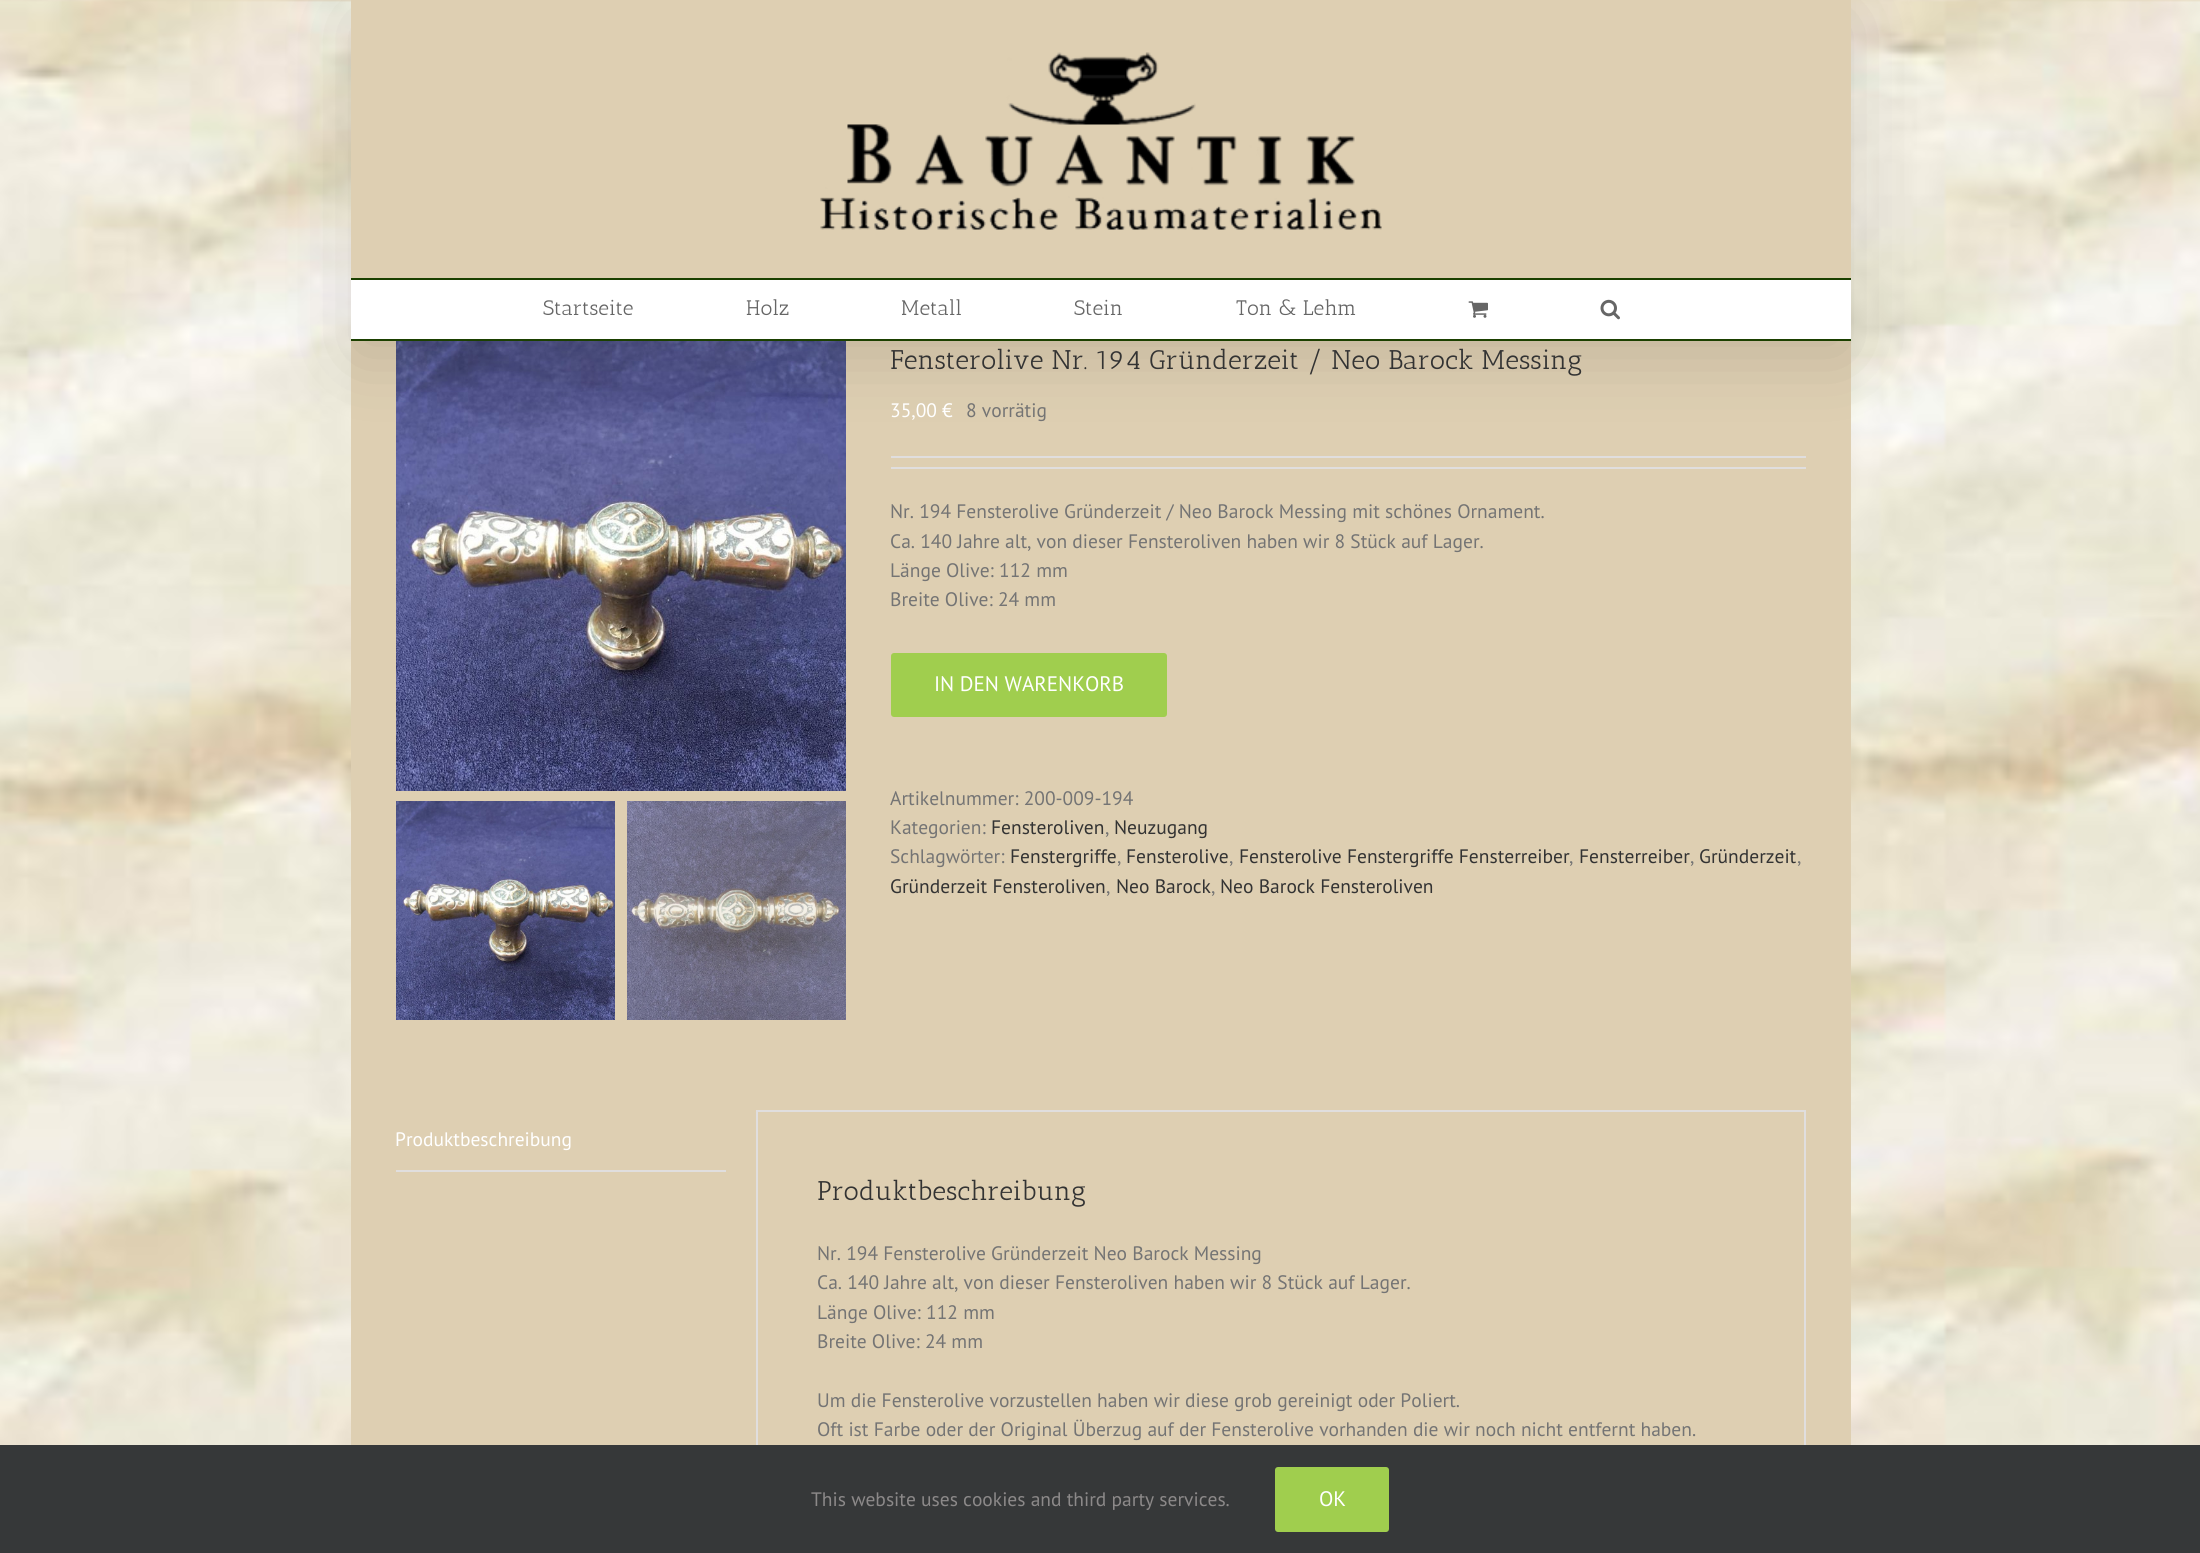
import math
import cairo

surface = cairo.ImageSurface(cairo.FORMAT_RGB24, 2200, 1553)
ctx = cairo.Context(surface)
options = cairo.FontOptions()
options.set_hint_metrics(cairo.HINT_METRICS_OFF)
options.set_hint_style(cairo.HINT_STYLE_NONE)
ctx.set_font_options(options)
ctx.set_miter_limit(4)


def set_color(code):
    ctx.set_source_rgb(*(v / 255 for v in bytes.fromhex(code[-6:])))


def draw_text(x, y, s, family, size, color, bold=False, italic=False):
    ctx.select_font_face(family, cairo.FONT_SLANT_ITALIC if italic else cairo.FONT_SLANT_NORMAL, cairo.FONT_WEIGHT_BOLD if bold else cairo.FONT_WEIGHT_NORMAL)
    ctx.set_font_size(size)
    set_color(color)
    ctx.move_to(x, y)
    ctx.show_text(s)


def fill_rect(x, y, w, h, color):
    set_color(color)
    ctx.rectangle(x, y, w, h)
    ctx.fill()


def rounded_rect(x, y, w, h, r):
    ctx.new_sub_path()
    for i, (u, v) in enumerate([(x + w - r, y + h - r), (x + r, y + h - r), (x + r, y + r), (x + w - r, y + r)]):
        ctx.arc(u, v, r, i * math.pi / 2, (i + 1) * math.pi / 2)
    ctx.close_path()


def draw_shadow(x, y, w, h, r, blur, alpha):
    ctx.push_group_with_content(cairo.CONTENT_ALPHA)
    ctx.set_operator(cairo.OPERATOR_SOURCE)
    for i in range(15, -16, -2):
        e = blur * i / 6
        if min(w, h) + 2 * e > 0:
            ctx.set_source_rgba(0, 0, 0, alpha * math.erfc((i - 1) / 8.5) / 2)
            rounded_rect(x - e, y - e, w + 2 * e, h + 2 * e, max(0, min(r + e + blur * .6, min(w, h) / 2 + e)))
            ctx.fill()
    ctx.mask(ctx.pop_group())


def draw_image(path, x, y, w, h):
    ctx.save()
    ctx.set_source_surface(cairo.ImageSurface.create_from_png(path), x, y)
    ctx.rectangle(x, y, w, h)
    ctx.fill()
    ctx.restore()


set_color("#ffffff")
ctx.paint()
draw_image("assets/img1.png", 0, 0, 2200, 1445)
fill_rect(351, 341, 1500, 1104, "#decfb2")
draw_image("assets/img5.png", 396, 341, 450, 450)
fill_rect(891, 456, 915, 2, "#e0dede")
set_color("#000000")
draw_shadow(354, 18, 1494, 335, 0, 37.5, 0.14)
fill_rect(351, 0, 1500, 278, "#decfb2")
fill_rect(351, 278, 1500, 2, "#1b4000")
draw_image("assets/img2.png", 820, 52, 562, 178)
fill_rect(351, 280, 1500, 59, "#ffffff")
fill_rect(351, 339, 1500, 2, "#1b4000")
draw_text(543, 315, "Startseite", "Antic Slab", 21, "#666666")
draw_text(746, 315, "Holz", "Antic Slab", 21, "#666666")
draw_text(901, 315, "Metall", "Antic Slab", 21, "#666666")
draw_text(1074, 315, "Stein", "Antic Slab", 21, "#666666")
draw_text(1236, 315, "Ton & Lehm", "Antic Slab", 21, "#666666")
draw_image("assets/img3.png", 1468, 301, 20, 17)
draw_image("assets/img4.png", 1600, 299, 20, 21)
draw_image("assets/img6.png", 396, 801, 219, 219)
draw_image("assets/img7.png", 627, 801, 219, 219)
draw_text(890, 369, "Fensterolive Nr. 194 Gründerzeit / Neo Barock Messing", "Antic Slab", 27, "#333333")
draw_text(890, 417, "35,00 €", "PT Sans", 19.5, "#ffffff")
draw_text(966, 417, "8 vorrätig", "PT Sans", 19.5, "#747474")
fill_rect(891, 467, 915, 2, "#e0dede")
draw_text(890, 518, "Nr. 194 Fensterolive Gründerzeit / Neo Barock Messing mit schönes Ornament.", "PT Sans", 19.5, "#747474")
draw_text(890, 548, "Ca. 140 Jahre alt, von dieser Fensteroliven haben wir 8 Stück auf Lager.", "PT Sans", 19.5, "#747474")
draw_text(890, 577, "Länge Olive: 112 mm", "PT Sans", 19.5, "#747474")
draw_text(890, 606, "Breite Olive: 24 mm", "PT Sans", 19.5, "#747474")
set_color("#a0ce4e")
rounded_rect(891, 653, 276, 64, 3)
ctx.fill()
draw_text(934, 691, "IN DEN WARENKORB", "PT Sans", 21, "#ffffff")
draw_text(890, 805, "Artikelnummer: 200-009-194", "PT Sans", 19.5, "#747474")
draw_text(890, 834, "Kategorien:", "PT Sans", 19.5, "#747474")
draw_text(991, 834, "Fensteroliven", "PT Sans", 19.5, "#333333")
draw_text(1105, 834, ",", "PT Sans", 19.5, "#747474")
draw_text(1114, 834, "Neuzugang", "PT Sans", 19.5, "#333333")
draw_text(890, 863, "Schlagwörter:", "PT Sans", 19.5, "#747474")
draw_text(1010, 863, "Fenstergriffe", "PT Sans", 19.5, "#333333")
draw_text(1117, 863, ",", "PT Sans", 19.5, "#747474")
draw_text(1126, 863, "Fensterolive", "PT Sans", 19.5, "#333333")
draw_text(1229, 863, ",", "PT Sans", 19.5, "#747474")
draw_text(1239, 863, "Fensterolive Fenstergriffe Fensterreiber", "PT Sans", 19.5, "#333333")
draw_text(1569, 863, ",", "PT Sans", 19.5, "#747474")
draw_text(1579, 863, "Fensterreiber", "PT Sans", 19.5, "#333333")
draw_text(1690, 863, ",", "PT Sans", 19.5, "#747474")
draw_text(1699, 863, "Gründerzeit", "PT Sans", 19.5, "#333333")
draw_text(1797, 863, ",", "PT Sans", 19.5, "#747474")
draw_text(890, 893, "Gründerzeit Fensteroliven", "PT Sans", 19.5, "#333333")
draw_text(1106, 893, ",", "PT Sans", 19.5, "#747474")
draw_text(1116, 893, "Neo Barock", "PT Sans", 19.5, "#333333")
draw_text(1211, 893, ",", "PT Sans", 19.5, "#747474")
draw_text(1220, 893, "Neo Barock Fensteroliven", "PT Sans", 19.5, "#333333")
fill_rect(396, 1170, 330, 2, "#e0dede")
draw_text(395, 1146, "Produktbeschreibung", "PT Sans", 19.5, "#ffffff")
ctx.rectangle(757, 1111, 1048, 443)
set_color("#e0dede")
ctx.stroke()
draw_text(817, 1200, "Produktbeschreibung", "Antic Slab", 27, "#333333")
draw_text(817, 1260, "Nr. 194 Fensterolive Gründerzeit Neo Barock Messing", "PT Sans", 19.5, "#747474")
draw_text(817, 1289, "Ca. 140 Jahre alt, von dieser Fensteroliven haben wir 8 Stück auf Lager.", "PT Sans", 19.5, "#747474")
draw_text(817, 1319, "Länge Olive: 112 mm", "PT Sans", 19.5, "#747474")
draw_text(817, 1348, "Breite Olive: 24 mm", "PT Sans", 19.5, "#747474")
draw_text(817, 1407, "Um die Fensterolive vorzustellen haben wir diese grob gereinigt oder Poliert.", "PT Sans", 19.5, "#747474")
draw_text(817, 1436, "Oft ist Farbe oder der Original Überzug auf der Fensterolive vorhanden die wir noch nicht entfernt haben.", "PT Sans", 19.5, "#747474")
fill_rect(0, 1445, 2200, 108, "#363839")
draw_text(811, 1506, "This website uses cookies and third party services.", "PT Sans", 19.5, "#8c8989")
set_color("#a0ce4e")
rounded_rect(1275, 1467, 114, 65, 3)
ctx.fill()
draw_text(1319, 1506, "OK", "PT Sans", 21, "#ffffff")
surface.write_to_png("output.png")
